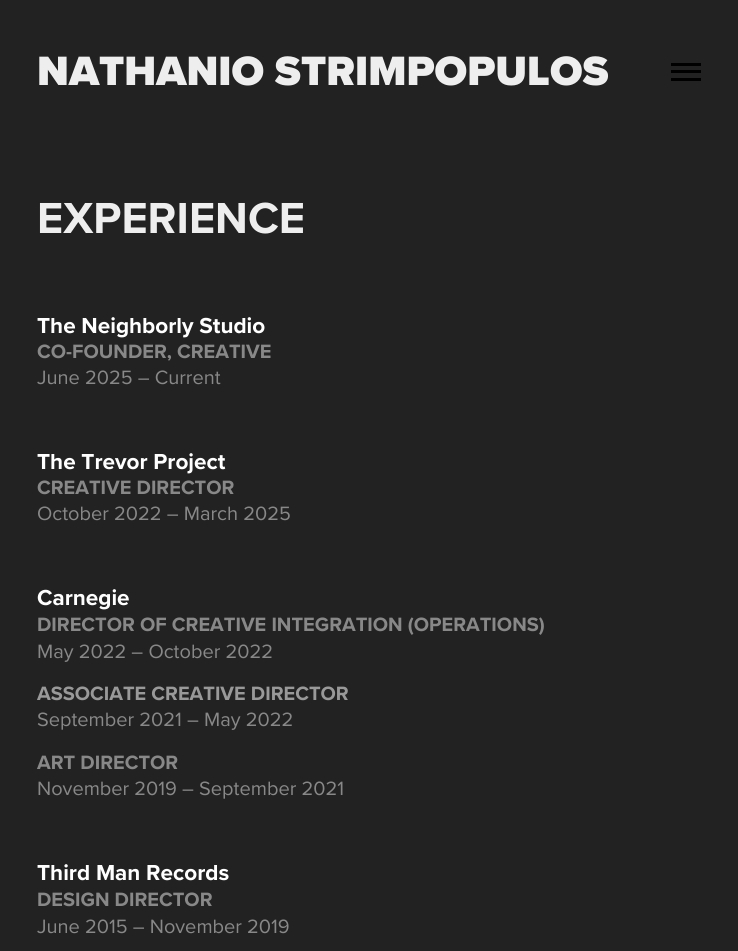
import math
import cairo

surface = cairo.ImageSurface(cairo.FORMAT_RGB24, 738, 951)
ctx = cairo.Context(surface)
options = cairo.FontOptions()
options.set_hint_metrics(cairo.HINT_METRICS_OFF)
options.set_hint_style(cairo.HINT_STYLE_NONE)
ctx.set_font_options(options)
ctx.set_miter_limit(4)


def set_color(code):
    ctx.set_source_rgb(*(v / 255 for v in bytes.fromhex(code[-6:])))


def draw_text(x, y, s, family, size, color, bold=False, italic=False):
    ctx.select_font_face(family, cairo.FONT_SLANT_ITALIC if italic else cairo.FONT_SLANT_NORMAL, cairo.FONT_WEIGHT_BOLD if bold else cairo.FONT_WEIGHT_NORMAL)
    ctx.set_font_size(size)
    set_color(color)
    ctx.move_to(x, y)
    ctx.show_text(s)


def fill_rect(x, y, w, h, color):
    set_color(color)
    ctx.rectangle(x, y, w, h)
    ctx.fill()


set_color("#222222")
ctx.paint()
draw_text(37, 85, "NATHANIO STRIMPOPULOS", "Proxima Nova Black", 42.5, "#eeeeee")
fill_rect(671, 63, 30, 3, "#000000")
fill_rect(671, 70, 30, 3, "#000000")
fill_rect(671, 78, 30, 3, "#000000")
draw_text(37, 233, "EXPERIENCE", "Proxima Nova", 45, "#eeeeee", bold=True)
draw_text(37, 333, "The Neighborly Studio", "Proxima Nova", 22.5, "#ffffff", bold=True)
draw_text(37, 358, "CO-FOUNDER, CREATIVE", "Proxima Nova", 20, "#888888", bold=True)
draw_text(37, 384, "June 2025 – Current", "Proxima Nova", 20, "#888888")
draw_text(37, 469, "The Trevor Project", "Proxima Nova", 22.5, "#ffffff", bold=True)
draw_text(37, 494, "CREATIVE DIRECTOR", "Proxima Nova", 20, "#888888", bold=True)
draw_text(37, 520, "October 2022 – March 2025", "Proxima Nova", 20, "#888888")
draw_text(37, 605, "Carnegie", "Proxima Nova", 22.5, "#ffffff", bold=True)
draw_text(37, 631, "DIRECTOR OF CREATIVE INTEGRATION (OPERATIONS)", "Proxima Nova", 20, "#888888", bold=True)
draw_text(37, 658, "May 2022 – October 2022", "Proxima Nova", 20, "#888888")
draw_text(37, 700, "ASSOCIATE CREATIVE DIRECTOR", "Proxima Nova", 20, "#999999", bold=True)
draw_text(37, 726, "September 2021 – May 2022", "Proxima Nova", 20, "#888888")
draw_text(37, 769, "ART DIRECTOR", "Proxima Nova", 20, "#888888", bold=True)
draw_text(37, 795, "November 2019 – September 2021", "Proxima Nova", 20, "#888888")
draw_text(37, 880, "Third Man Records", "Proxima Nova", 22.5, "#ffffff", bold=True)
draw_text(37, 906, "DESIGN DIRECTOR", "Proxima Nova", 20, "#888888", bold=True)
draw_text(37, 933, "June 2015 – November 2019", "Proxima Nova", 20, "#888888")
surface.write_to_png("output.png")
